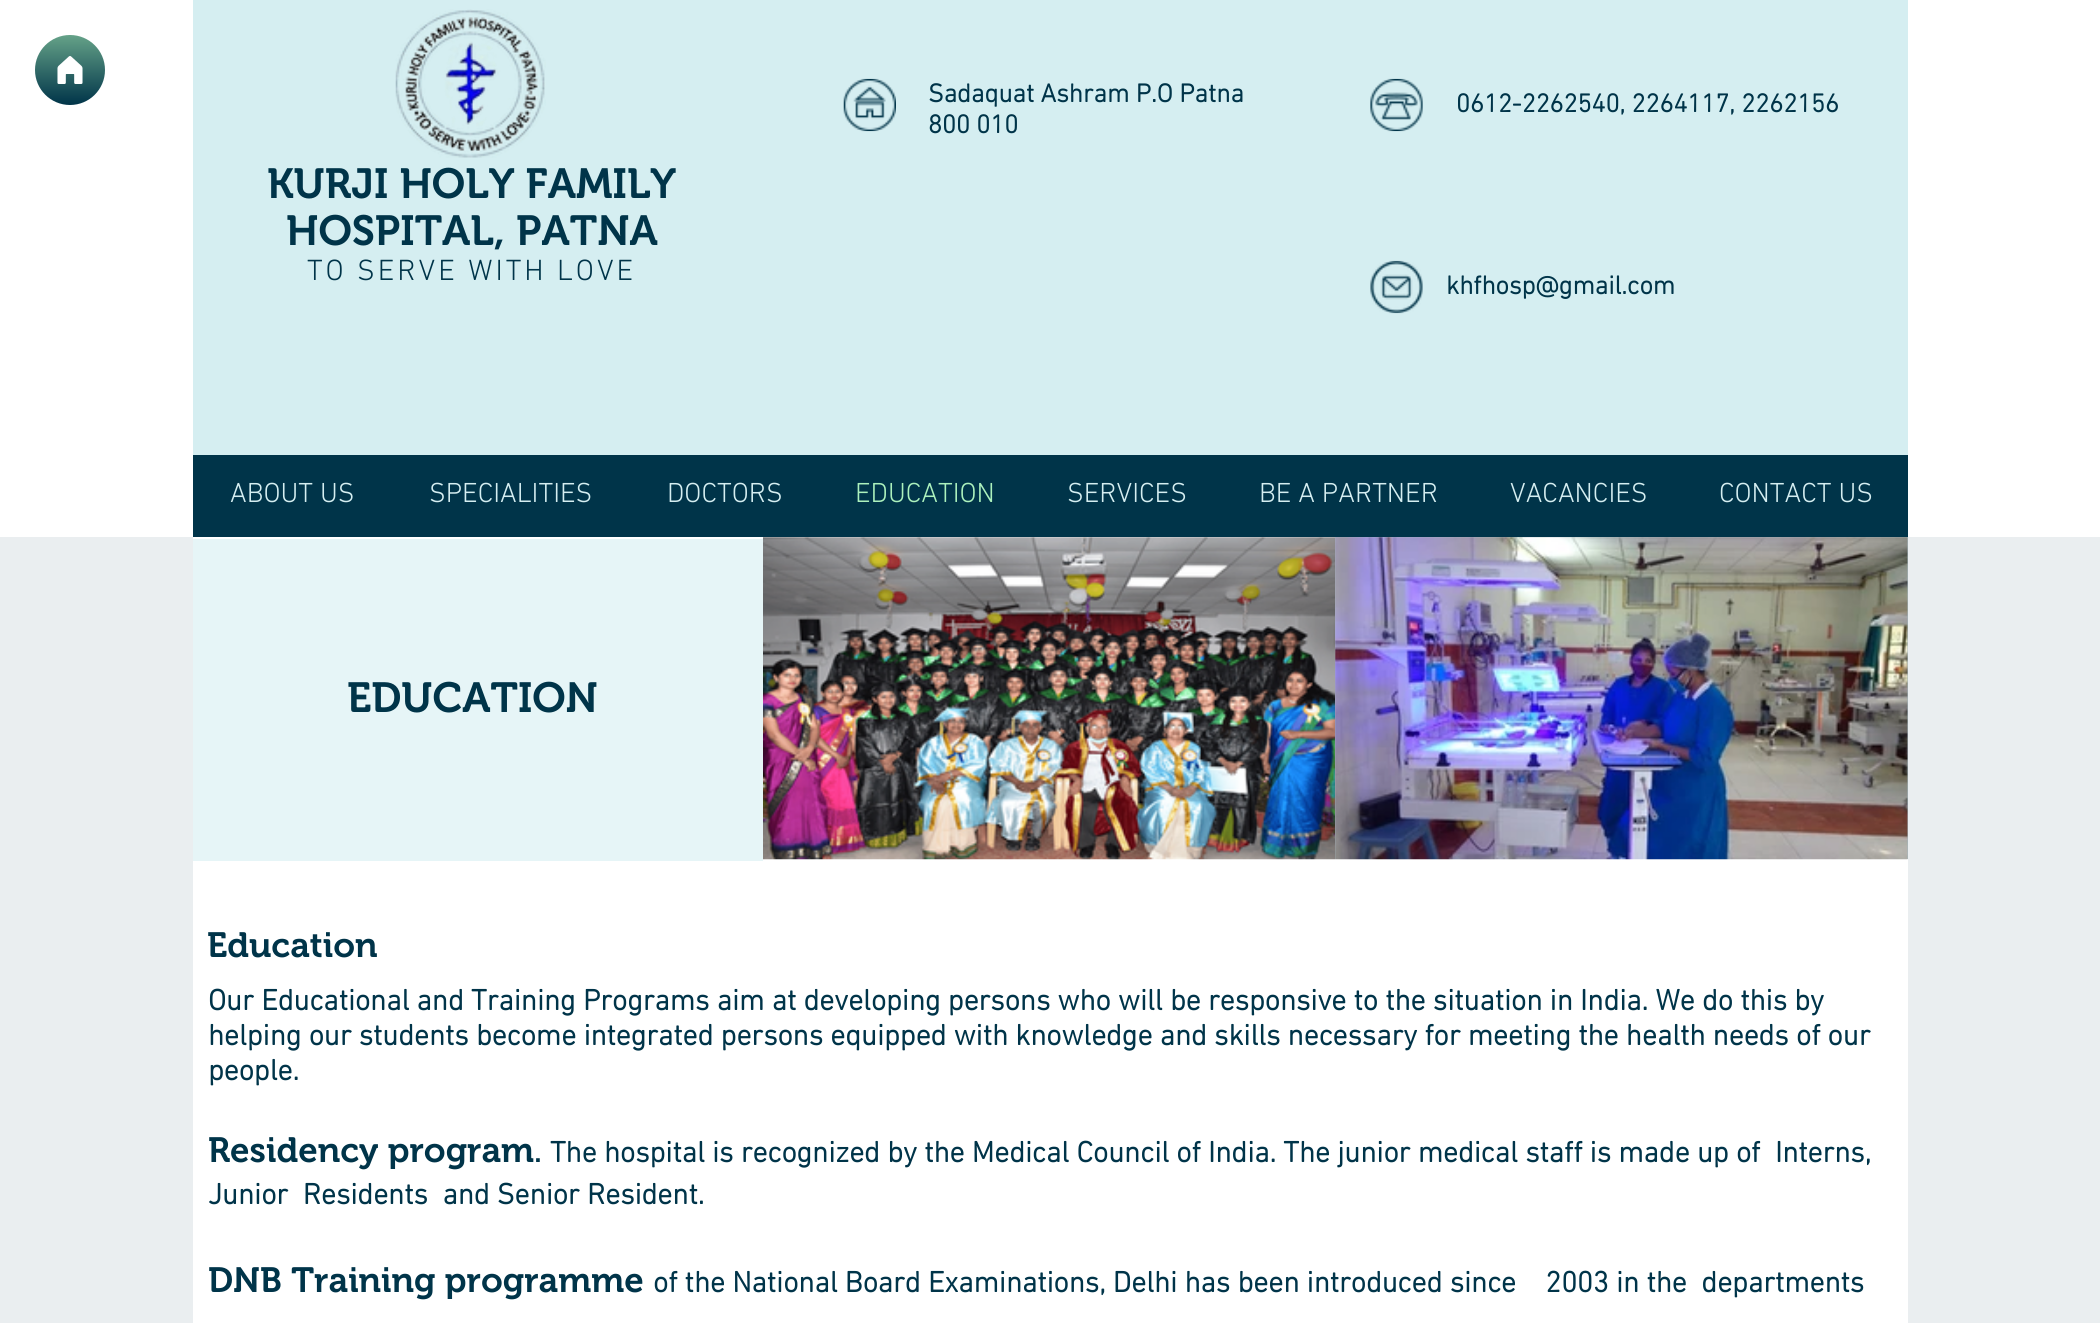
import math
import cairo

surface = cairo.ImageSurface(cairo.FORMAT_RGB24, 2100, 1323)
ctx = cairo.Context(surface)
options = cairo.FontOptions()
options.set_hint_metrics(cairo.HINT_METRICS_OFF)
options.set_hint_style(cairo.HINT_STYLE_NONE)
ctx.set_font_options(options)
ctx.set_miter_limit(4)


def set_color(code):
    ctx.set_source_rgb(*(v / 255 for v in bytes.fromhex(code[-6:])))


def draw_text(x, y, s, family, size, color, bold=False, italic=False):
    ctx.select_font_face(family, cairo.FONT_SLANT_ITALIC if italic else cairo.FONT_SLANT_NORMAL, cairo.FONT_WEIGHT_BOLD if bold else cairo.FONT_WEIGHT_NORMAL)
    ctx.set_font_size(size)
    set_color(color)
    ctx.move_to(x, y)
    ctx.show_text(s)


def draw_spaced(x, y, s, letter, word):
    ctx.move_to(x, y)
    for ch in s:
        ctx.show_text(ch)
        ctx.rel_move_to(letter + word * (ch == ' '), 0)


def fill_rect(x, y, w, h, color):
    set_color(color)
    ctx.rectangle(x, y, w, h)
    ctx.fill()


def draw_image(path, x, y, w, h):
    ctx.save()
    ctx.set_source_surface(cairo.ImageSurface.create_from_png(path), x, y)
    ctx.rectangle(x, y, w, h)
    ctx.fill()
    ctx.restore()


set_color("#eaeef0")
ctx.paint()
fill_rect(0, 0, 2100, 537, "#ffffff")
gradient = cairo.LinearGradient(70, 35, 70, 105)
gradient.add_color_stop_rgba(0, 0.396, 0.635, 0.533, 1)
gradient.add_color_stop_rgba(1, 0, 0.204, 0.286, 1)
ctx.set_source(gradient)
ctx.arc(70, 70, 35, 0, 2 * math.pi)
ctx.fill()
draw_image("assets/img1.png", 57, 56, 26, 28)
fill_rect(193, 0, 1715, 455, "#d5eef1")
draw_image("assets/img2.png", 395, 9, 151, 149)
draw_image("assets/img3.png", 843, 78, 53, 54)
draw_text(928, 102, "Sadaquat Ashram P.O Patna", "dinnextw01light", 26.25, "#003449", bold=True)
draw_text(928, 133, "800 010", "dinnextw01light", 26.25, "#003449", bold=True)
draw_image("assets/img4.png", 1370, 78, 53, 54)
draw_text(1456, 112, "0612-2262540, 2264117, 2262156", "dinnextw01light", 26.25, "#003449", bold=True)
draw_image("assets/img5.png", 1370, 260, 53, 54)
draw_text(1446, 294, "khfhosp@gmail.com", "dinnextw01light", 26.25, "#003449", bold=True)
draw_text(267, 198, "KURJI HOLY FAMILY", "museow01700 SemiBold", 42, "#003449")
draw_text(286, 245, "HOSPITAL, PATNA", "museow01700 SemiBold", 42, "#003449")
ctx.select_font_face("dinnextw01light Light")
ctx.set_font_size(29.75)
draw_spaced(307, 280, "TO SERVE WITH LOVE", 3, 0)
fill_rect(193, 455, 1715, 82, "#003449")
draw_text(230, 502, "ABOUT US", "dinnextw01light Light", 28, "#d5eef1")
draw_text(429, 502, "SPECIALITIES", "dinnextw01light Light", 28, "#d5eef1")
draw_text(667, 502, "DOCTORS", "dinnextw01light Light", 28, "#d5eef1")
draw_text(855, 502, "EDUCATION", "dinnextw01light Light", 28, "#acf1bd")
draw_text(1067, 502, "SERVICES", "dinnextw01light Light", 28, "#d5eef1")
draw_text(1259, 502, "BE A PARTNER", "dinnextw01light Light", 28, "#d5eef1")
draw_text(1510, 502, "VACANCIES", "dinnextw01light Light", 28, "#d5eef1")
draw_text(1719, 502, "CONTACT US", "dinnextw01light Light", 28, "#d5eef1")
fill_rect(193, 537, 1715, 786, "#ffffff")
fill_rect(193, 539, 570, 322, "#e6f5f7")
draw_text(347, 712, "EDUCATION", "museow01700 SemiBold", 42, "#003449")
draw_image("assets/img6.png", 763, 537, 573, 323)
fill_rect(1335, 537, 573, 322, "#a5b7bf")
draw_image("assets/img7.png", 1335, 537, 573, 323)
draw_text(207, 957, "Education", "museow01700 SemiBold", 35, "#003449")
draw_text(208, 1010, "Our Educational and Training Programs aim at developing persons who will be responsive to the situation in India. We do this by", "dinnextw01light", 29.75, "#003449", bold=True)
draw_text(208, 1045, "helping our students become integrated persons equipped with knowledge and skills necessary for meeting the health needs of our", "dinnextw01light", 29.75, "#003449", bold=True)
draw_text(208, 1080, "people.", "dinnextw01light", 29.75, "#003449", bold=True)
draw_text(208, 1162, "Residency program", "museow01700 SemiBold", 35, "#003449")
draw_text(534, 1162, ".", "museow01700 SemiBold", 29.75, "#003449")
draw_text(550, 1162, "The hospital is recognized by the Medical Council of India. The junior medical staff is made up of  Interns,", "dinnextw01light", 29.75, "#003449", bold=True)
draw_text(208, 1204, "Junior  Residents  and Senior Resident.", "dinnextw01light", 29.75, "#003449", bold=True)
draw_text(208, 1292, "DNB Training programme", "museow01700 SemiBold", 35, "#003449")
draw_text(653, 1292, "of the National Board Examinations, Delhi has been introduced since    2003 in the  departments", "dinnextw01light", 29.75, "#003449", bold=True)
surface.write_to_png("output.png")
